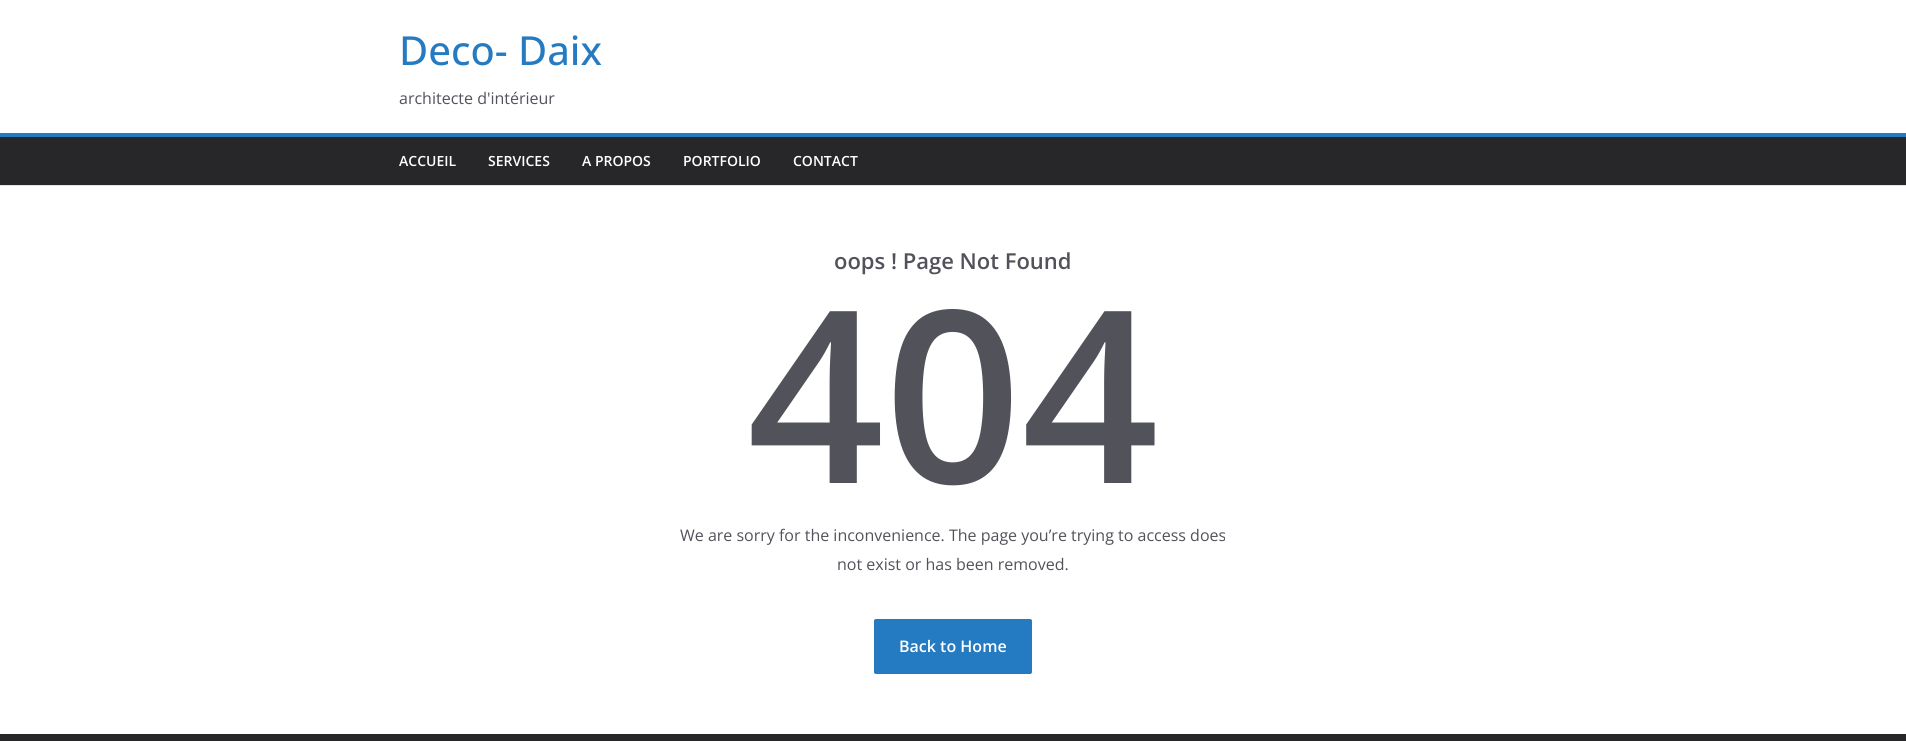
import math
import cairo

surface = cairo.ImageSurface(cairo.FORMAT_RGB24, 1906, 741)
ctx = cairo.Context(surface)
options = cairo.FontOptions()
options.set_hint_metrics(cairo.HINT_METRICS_OFF)
options.set_hint_style(cairo.HINT_STYLE_NONE)
ctx.set_font_options(options)
ctx.set_miter_limit(4)


def set_color(code):
    ctx.set_source_rgb(*(v / 255 for v in bytes.fromhex(code[-6:])))


def draw_text(x, y, s, family, size, color, bold=False, italic=False):
    ctx.select_font_face(family, cairo.FONT_SLANT_ITALIC if italic else cairo.FONT_SLANT_NORMAL, cairo.FONT_WEIGHT_BOLD if bold else cairo.FONT_WEIGHT_NORMAL)
    ctx.set_font_size(size)
    set_color(color)
    ctx.move_to(x, y)
    ctx.show_text(s)


def fill_rect(x, y, w, h, color):
    set_color(color)
    ctx.rectangle(x, y, w, h)
    ctx.fill()


def rounded_rect(x, y, w, h, r):
    ctx.new_sub_path()
    for i, (u, v) in enumerate([(x + w - r, y + h - r), (x + r, y + h - r), (x + r, y + r), (x + w - r, y + r)]):
        ctx.arc(u, v, r, i * math.pi / 2, (i + 1) * math.pi / 2)
    ctx.close_path()


set_color("#ffffff")
ctx.paint()
fill_rect(0, 185, 1906, 1, "#e4e4e7")
draw_text(399, 65, "Deco- Daix", "Open Sans Medium", 40, "#257bc1")
draw_text(399, 104, "architecte d'intérieur", "Open Sans", 16, "#52525b")
fill_rect(0, 137, 1906, 48, "#27272a")
fill_rect(0, 133, 1906, 4, "#257bc1")
draw_text(399, 166, "ACCUEIL", "Open Sans SemiBold", 14, "#ffffff")
draw_text(488, 166, "SERVICES", "Open Sans SemiBold", 14, "#ffffff")
draw_text(582, 166, "A PROPOS", "Open Sans SemiBold", 14, "#ffffff")
draw_text(683, 166, "PORTFOLIO", "Open Sans SemiBold", 14, "#ffffff")
draw_text(793, 166, "CONTACT", "Open Sans SemiBold", 14, "#ffffff")
draw_text(834, 269, "oops ! Page Not Found", "Open Sans SemiBold", 22, "#52525b")
draw_text(747, 483, "404", "Open Sans SemiBold", 240, "#52525b")
draw_text(680, 541, "We are sorry for the inconvenience. The page you’re trying to access does", "Open Sans", 16, "#52525b")
draw_text(837, 570, "not exist or has been removed.", "Open Sans", 16, "#52525b")
set_color("#257bc1")
rounded_rect(874.5, 619.5, 157, 54, 1.5)
ctx.fill_preserve()
ctx.set_line_width(1)
ctx.stroke()
draw_text(899, 652, "Back to Home", "Open Sans SemiBold", 16, "#ffffff")
fill_rect(0, 734, 1906, 7, "#27272a")
surface.write_to_png("output.png")
